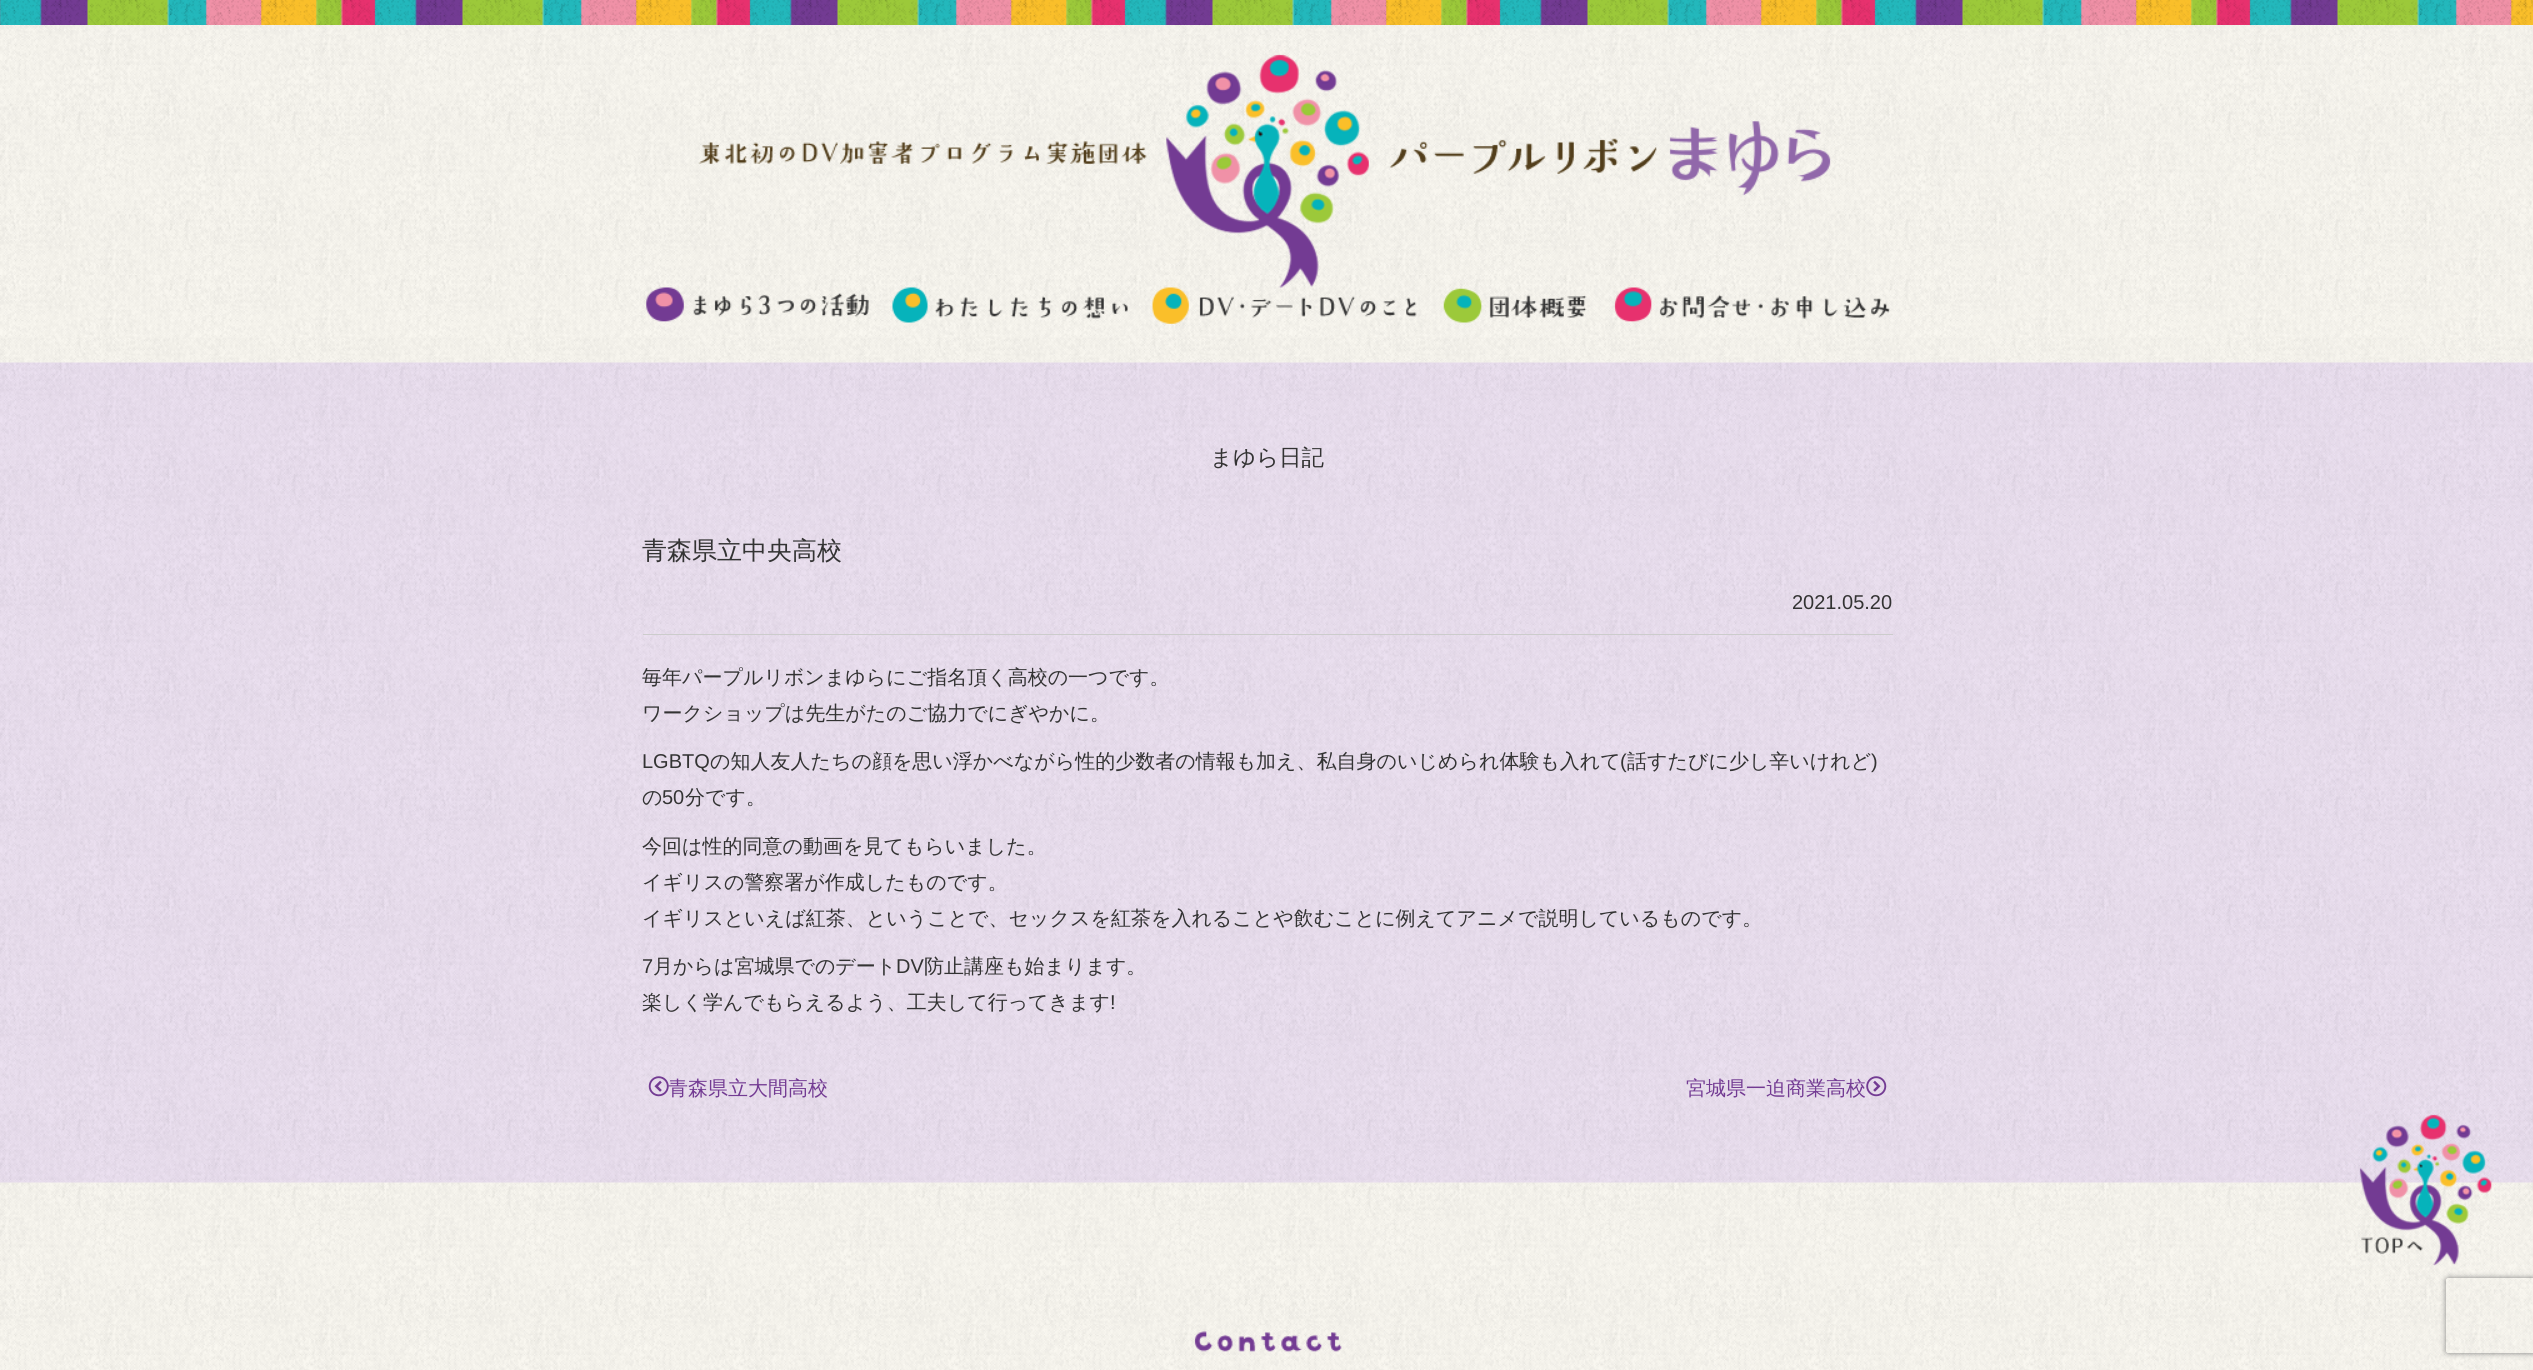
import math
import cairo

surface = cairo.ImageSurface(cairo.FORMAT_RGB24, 2533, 1370)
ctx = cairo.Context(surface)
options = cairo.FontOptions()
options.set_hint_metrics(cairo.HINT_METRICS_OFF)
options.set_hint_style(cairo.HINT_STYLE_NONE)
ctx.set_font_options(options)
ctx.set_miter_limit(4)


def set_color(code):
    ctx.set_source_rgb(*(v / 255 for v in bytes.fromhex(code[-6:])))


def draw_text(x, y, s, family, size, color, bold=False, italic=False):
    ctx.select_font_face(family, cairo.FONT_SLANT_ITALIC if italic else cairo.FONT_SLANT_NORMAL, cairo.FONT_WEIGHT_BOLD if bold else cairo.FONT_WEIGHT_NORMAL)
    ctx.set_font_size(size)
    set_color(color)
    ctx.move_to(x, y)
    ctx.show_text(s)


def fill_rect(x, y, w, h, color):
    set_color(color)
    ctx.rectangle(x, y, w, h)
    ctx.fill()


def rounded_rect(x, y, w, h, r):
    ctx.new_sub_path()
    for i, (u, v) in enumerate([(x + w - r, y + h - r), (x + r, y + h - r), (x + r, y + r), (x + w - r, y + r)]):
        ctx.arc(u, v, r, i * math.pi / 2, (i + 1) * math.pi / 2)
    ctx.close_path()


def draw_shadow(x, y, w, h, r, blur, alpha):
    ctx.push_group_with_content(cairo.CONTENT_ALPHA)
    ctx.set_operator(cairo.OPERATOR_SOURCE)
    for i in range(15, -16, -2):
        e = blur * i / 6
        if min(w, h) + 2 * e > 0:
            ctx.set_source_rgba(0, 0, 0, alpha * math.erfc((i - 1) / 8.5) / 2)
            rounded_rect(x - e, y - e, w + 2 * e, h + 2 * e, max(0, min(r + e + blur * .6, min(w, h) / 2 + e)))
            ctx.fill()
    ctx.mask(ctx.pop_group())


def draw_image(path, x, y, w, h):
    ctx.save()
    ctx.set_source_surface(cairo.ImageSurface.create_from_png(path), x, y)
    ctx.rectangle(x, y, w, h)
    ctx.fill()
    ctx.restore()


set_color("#ffffff")
ctx.paint()
draw_image("assets/img1.png", 0, 25, 2533, 1345)
draw_image("assets/img2.png", 0, 0, 2533, 25)
draw_image("assets/img4.png", 0, 275, 2533, 63)
draw_image("assets/img5.png", 646, 287, 223, 35)
draw_image("assets/img6.png", 892, 287, 236, 36)
draw_image("assets/img7.png", 1152, 287, 265, 37)
draw_image("assets/img9.png", 1614, 287, 276, 35)
draw_image("assets/img3.png", 698, 54, 1133, 234)
draw_image("assets/img8.png", 1443, 288, 144, 35)
draw_image("assets/img10.png", 0, 362, 2533, 821)
draw_text(1210, 465, "まゆら日記", "WenQuanYi Zen Hei Medium", 22.5, "#333333")
fill_rect(643, 634, 1250, 1, "#cccccc")
draw_text(642, 559, "青森県立中央高校", "WenQuanYi Zen Hei Medium", 25, "#333333")
draw_text(1792, 609, "2021.05.20", "Liberation Sans", 20, "#333333")
draw_text(642, 684, "毎年パープルリボンまゆらにご指名頂く高校の一つです。", "WenQuanYi Zen Hei Medium", 20, "#333333")
draw_text(642, 720, "ワークショップは先生がたのご協力でにぎやかに。", "WenQuanYi Zen Hei Medium", 20, "#333333")
draw_text(642, 768, "LGBTQ", "Liberation Sans", 20, "#333333")
draw_text(710, 768, "の知人友人たちの顔を思い浮かべながら性的少数者の情報も加え、私自身のいじめられ体験も入れて", "WenQuanYi Zen Hei Medium", 20, "#333333")
draw_text(1620, 768, "(", "Liberation Sans", 20, "#333333")
draw_text(1627, 768, "話すたびに少し辛いけれど", "WenQuanYi Zen Hei Medium", 20, "#333333")
draw_text(1871, 768, ")", "Liberation Sans", 20, "#333333")
draw_text(642, 804, "の", "WenQuanYi Zen Hei Medium", 20, "#333333")
draw_text(662, 804, "50", "Liberation Sans", 20, "#333333")
draw_text(685, 804, "分です。", "WenQuanYi Zen Hei Medium", 20, "#333333")
draw_text(642, 853, "今回は性的同意の動画を見てもらいました。", "WenQuanYi Zen Hei Medium", 20, "#333333")
draw_text(642, 889, "イギリスの警察署が作成したものです。", "WenQuanYi Zen Hei Medium", 20, "#333333")
draw_text(642, 925, "イギリスといえば紅茶、ということで、セックスを紅茶を入れることや飲むことに例えてアニメで説明しているものです。", "WenQuanYi Zen Hei Medium", 20, "#333333")
draw_text(642, 973, "7", "Liberation Sans", 20, "#333333")
draw_text(653, 973, "月からは宮城県でのデート", "WenQuanYi Zen Hei Medium", 20, "#333333")
draw_text(896, 973, "DV", "Liberation Sans", 20, "#333333")
draw_text(924, 973, "防止講座も始まります。", "WenQuanYi Zen Hei Medium", 20, "#333333")
draw_text(642, 1009, "楽しく学んでもらえるよう、工夫して行ってきます", "WenQuanYi Zen Hei Medium", 20, "#333333")
draw_text(1110, 1009, "!", "Liberation Sans", 20, "#333333")
draw_image("assets/img11.png", 648, 1076, 21, 21)
draw_text(668, 1095, "青森県立大間高校", "WenQuanYi Zen Hei Medium", 20, "#733b93")
draw_text(1686, 1095, "宮城県一迫商業高校", "WenQuanYi Zen Hei Medium", 20, "#733b93")
draw_image("assets/img12.png", 1866, 1076, 21, 21)
draw_image("assets/img13.png", 2359, 1114, 133, 152)
draw_image("assets/img14.png", 1194, 1331, 148, 21)
ctx.save()
ctx.set_fill_rule(cairo.FILL_RULE_EVEN_ODD)
ctx.new_path()
ctx.move_to(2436, 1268)
ctx.line_to(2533, 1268)
ctx.line_to(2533, 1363)
ctx.line_to(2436, 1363)
ctx.close_path()
ctx.move_to(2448.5, 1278)
ctx.line_to(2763.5, 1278)
ctx.curve_to(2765, 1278, 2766, 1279, 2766, 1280.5)
ctx.line_to(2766, 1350.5)
ctx.curve_to(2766, 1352, 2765, 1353, 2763.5, 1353)
ctx.line_to(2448.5, 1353)
ctx.curve_to(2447, 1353, 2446, 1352, 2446, 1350.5)
ctx.line_to(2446, 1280.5)
ctx.curve_to(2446, 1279, 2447, 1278, 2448.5, 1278)
ctx.close_path()
ctx.clip()
set_color("#808080")
draw_shadow(2446, 1278, 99, 75, 2.5, 3, 1)
ctx.restore()
surface.write_to_png("output.png")
